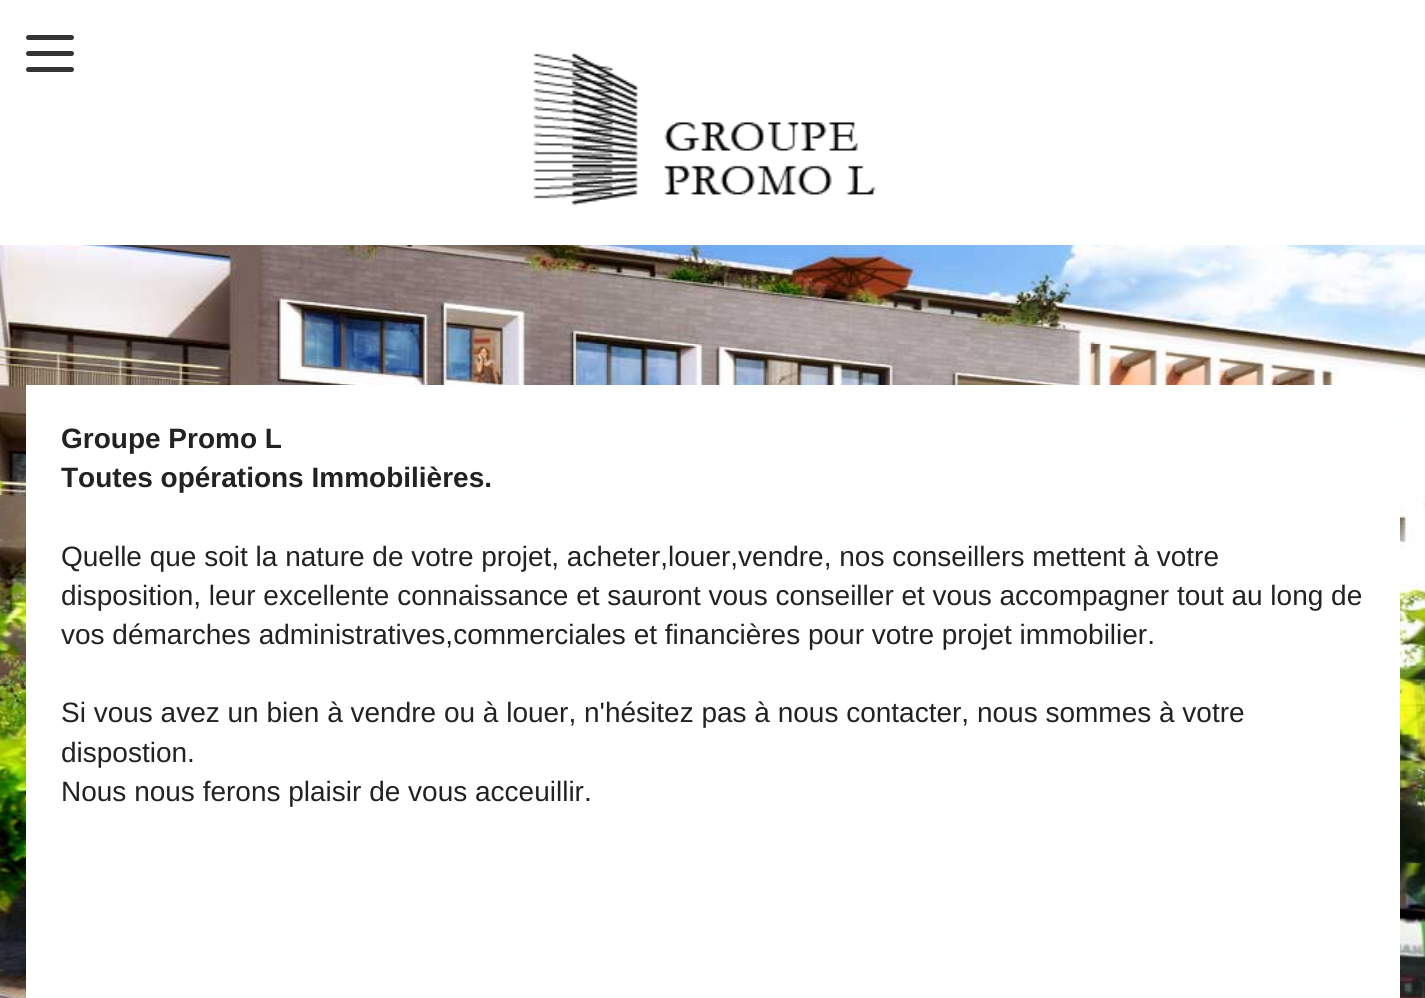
import math
import cairo

surface = cairo.ImageSurface(cairo.FORMAT_RGB24, 1425, 998)
ctx = cairo.Context(surface)
options = cairo.FontOptions()
options.set_hint_metrics(cairo.HINT_METRICS_OFF)
options.set_hint_style(cairo.HINT_STYLE_NONE)
ctx.set_font_options(options)
ctx.set_miter_limit(4)


def set_color(code):
    ctx.set_source_rgb(*(v / 255 for v in bytes.fromhex(code[-6:])))


def draw_text(x, y, s, family, size, color, bold=False, italic=False):
    ctx.select_font_face(family, cairo.FONT_SLANT_ITALIC if italic else cairo.FONT_SLANT_NORMAL, cairo.FONT_WEIGHT_BOLD if bold else cairo.FONT_WEIGHT_NORMAL)
    ctx.set_font_size(size)
    set_color(color)
    ctx.move_to(x, y)
    ctx.show_text(s)


def fill_rect(x, y, w, h, color):
    set_color(color)
    ctx.rectangle(x, y, w, h)
    ctx.fill()


def rounded_rect(x, y, w, h, r):
    ctx.new_sub_path()
    for i, (u, v) in enumerate([(x + w - r, y + h - r), (x + r, y + h - r), (x + r, y + r), (x + w - r, y + r)]):
        ctx.arc(u, v, r, i * math.pi / 2, (i + 1) * math.pi / 2)
    ctx.close_path()


def draw_image(path, x, y, w, h):
    ctx.save()
    ctx.set_source_surface(cairo.ImageSurface.create_from_png(path), x, y)
    ctx.rectangle(x, y, w, h)
    ctx.fill()
    ctx.restore()


set_color("#ffffff")
ctx.paint()
set_color("#333333")
rounded_rect(26, 35, 48, 5, 2.5)
ctx.fill()
rounded_rect(26, 51, 48, 5, 2.5)
ctx.fill()
rounded_rect(26, 67, 48, 5, 2.5)
ctx.fill()
draw_image("assets/img1.png", 533, 52, 343, 154)
draw_image("assets/img2.png", 0, 245, 1425, 753)
fill_rect(26, 385, 1374, 613, "#ffffff")
draw_text(61, 448, "Groupe Promo L", "Liberation Sans", 28, "#222222", bold=True)
draw_text(61, 487, "Toutes opérations Immobilières.", "Liberation Sans", 28, "#222222", bold=True)
draw_text(61, 566, "Quelle que soit la nature de votre projet, acheter,louer,vendre, nos conseillers mettent à votre", "Liberation Sans", 28, "#222222")
draw_text(61, 605, "disposition, leur excellente connaissance et sauront vous conseiller et vous accompagner tout au long de", "Liberation Sans", 28, "#222222")
draw_text(61, 644, "vos démarches administratives,commerciales et financières pour votre projet immobilier.", "Liberation Sans", 28, "#222222")
draw_text(61, 722, "Si vous avez un bien à vendre ou à louer, n'hésitez pas à nous contacter, nous sommes à votre", "Liberation Sans", 28, "#222222")
draw_text(61, 762, "dispostion.", "Liberation Sans", 28, "#222222")
draw_text(61, 801, "Nous nous ferons plaisir de vous acceuillir.", "Liberation Sans", 28, "#222222")
surface.write_to_png("output.png")
